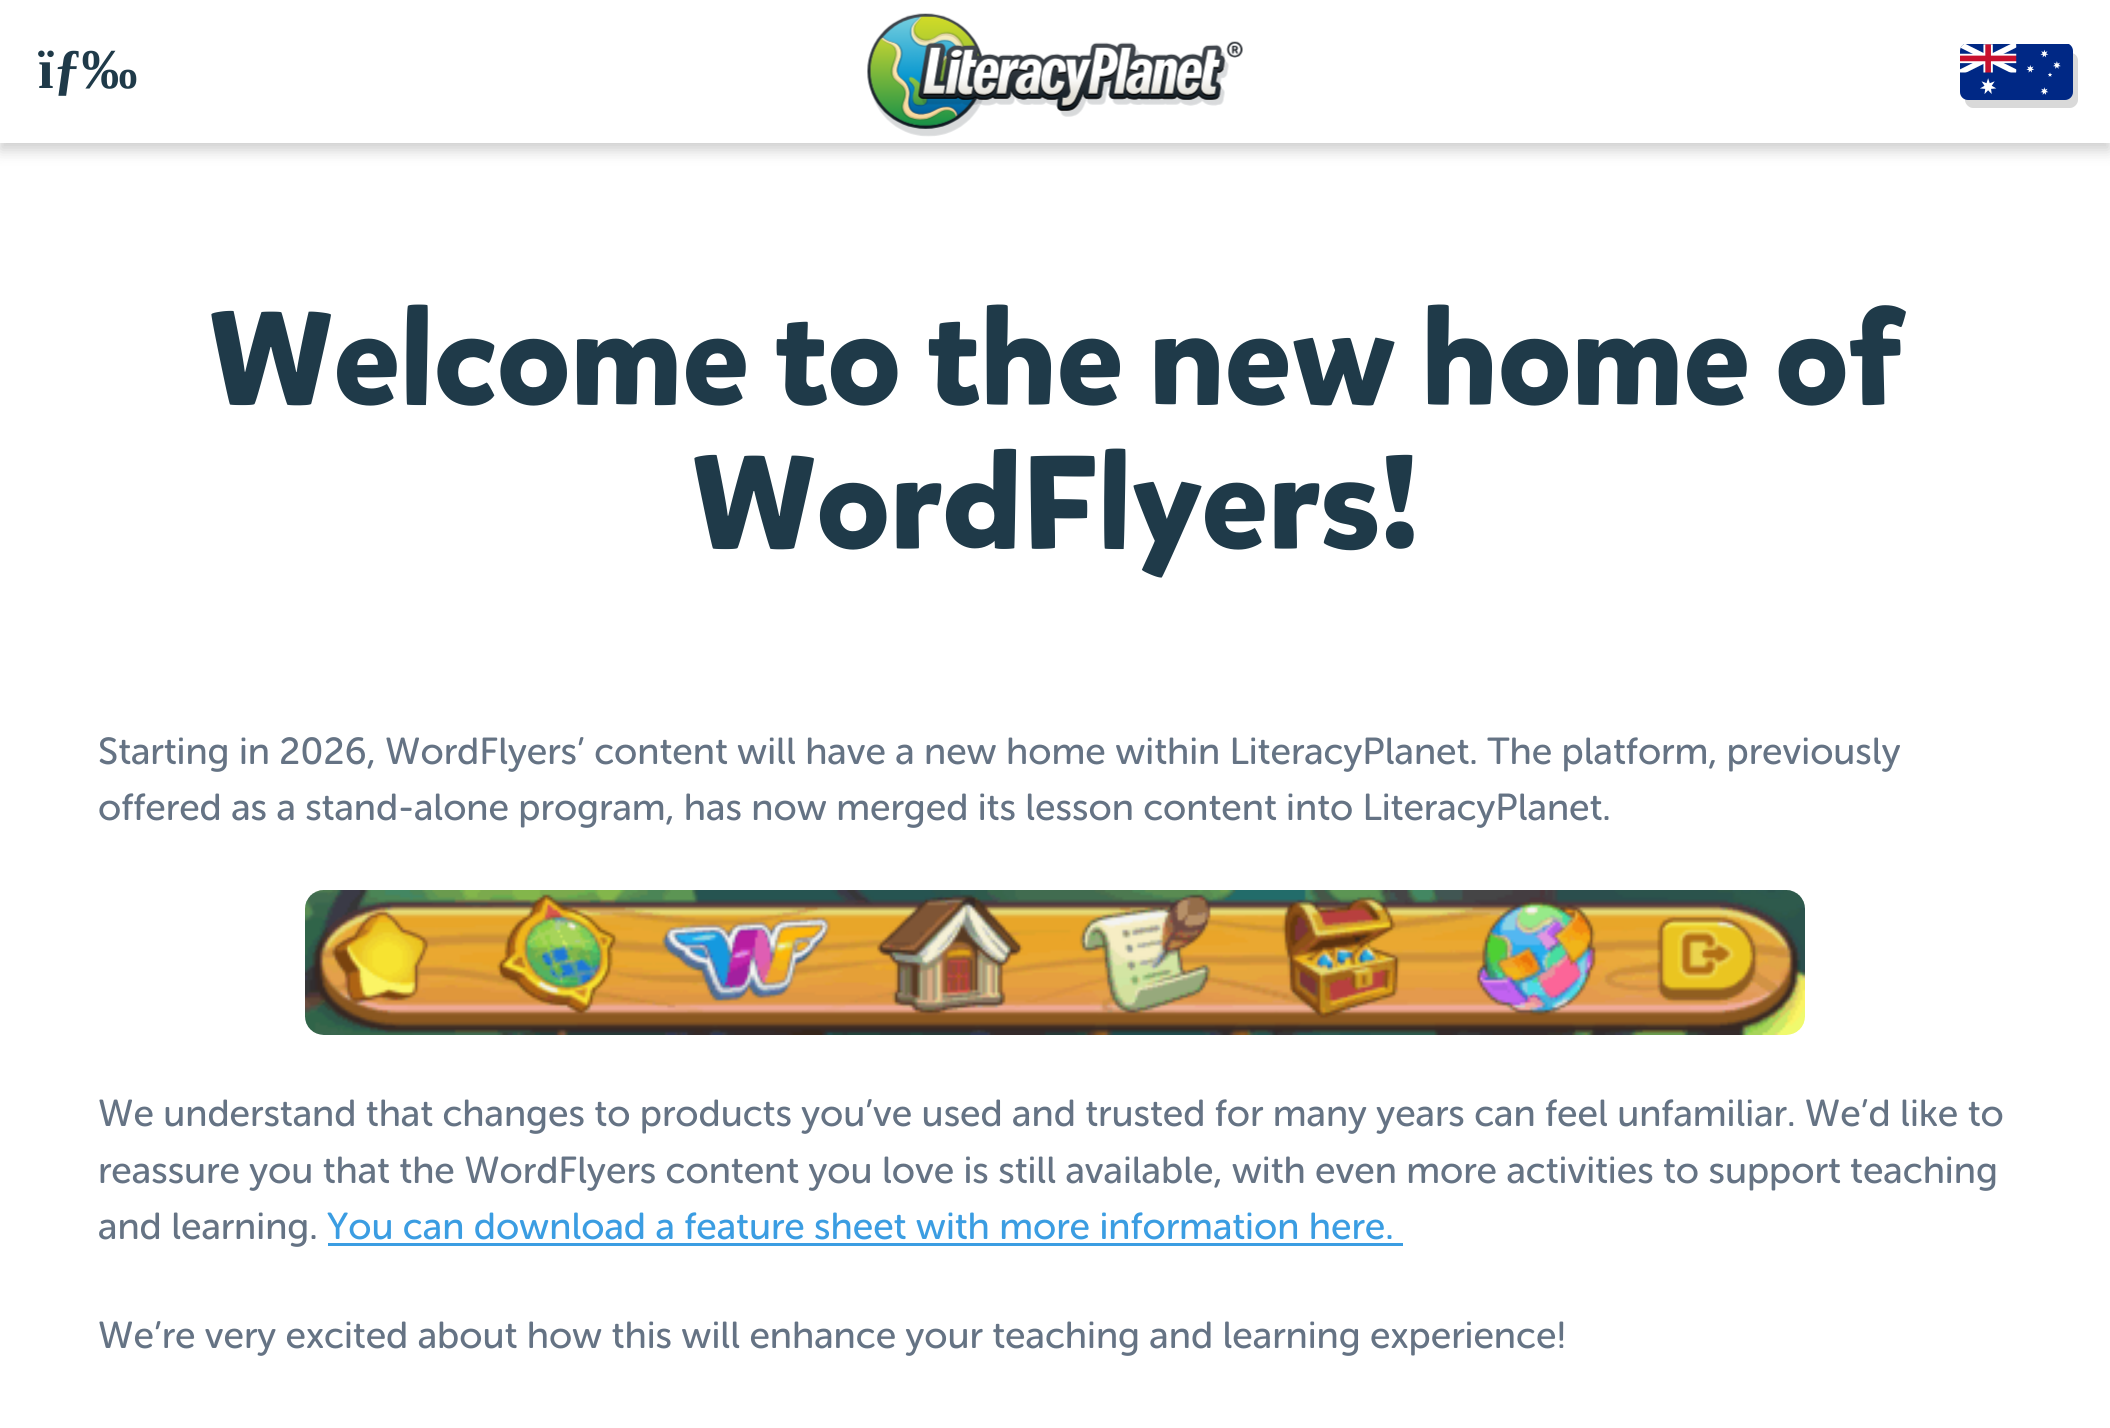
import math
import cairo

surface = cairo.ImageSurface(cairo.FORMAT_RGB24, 2110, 1428)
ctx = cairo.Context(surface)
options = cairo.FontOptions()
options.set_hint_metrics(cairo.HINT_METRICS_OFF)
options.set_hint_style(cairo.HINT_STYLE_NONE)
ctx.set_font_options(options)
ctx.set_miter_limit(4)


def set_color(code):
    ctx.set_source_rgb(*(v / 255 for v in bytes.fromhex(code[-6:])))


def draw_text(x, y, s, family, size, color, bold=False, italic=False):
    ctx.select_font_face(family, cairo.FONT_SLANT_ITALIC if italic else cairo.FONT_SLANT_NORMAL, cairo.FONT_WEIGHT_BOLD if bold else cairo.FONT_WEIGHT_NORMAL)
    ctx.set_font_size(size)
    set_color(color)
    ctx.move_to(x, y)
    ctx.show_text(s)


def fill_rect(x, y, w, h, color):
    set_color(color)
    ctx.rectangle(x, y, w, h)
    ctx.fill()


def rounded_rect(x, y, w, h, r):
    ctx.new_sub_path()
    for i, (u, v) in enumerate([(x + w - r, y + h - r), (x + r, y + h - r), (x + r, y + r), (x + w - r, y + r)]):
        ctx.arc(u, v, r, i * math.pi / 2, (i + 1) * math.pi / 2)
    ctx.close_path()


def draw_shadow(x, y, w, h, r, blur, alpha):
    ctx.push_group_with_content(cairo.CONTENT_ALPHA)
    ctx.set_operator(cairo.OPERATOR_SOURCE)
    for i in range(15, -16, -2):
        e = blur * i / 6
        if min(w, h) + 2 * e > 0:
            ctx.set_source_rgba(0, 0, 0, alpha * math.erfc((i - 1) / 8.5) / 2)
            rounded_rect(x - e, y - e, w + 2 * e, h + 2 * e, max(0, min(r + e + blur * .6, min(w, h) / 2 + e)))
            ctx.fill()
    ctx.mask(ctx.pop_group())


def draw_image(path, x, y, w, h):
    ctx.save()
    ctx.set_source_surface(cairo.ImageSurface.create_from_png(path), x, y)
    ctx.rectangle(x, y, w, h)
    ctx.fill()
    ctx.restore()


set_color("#ffffff")
ctx.paint()
set_color("#000000")
draw_shadow(0, 8, 2110, 142, 0, 7.5, 0.2)
fill_rect(0, 0, 2110, 143, "#ffffff")
draw_text(38, 88, "ïƒ‰", "Liberation Serif", 56, "#1f3a49", bold=True)
draw_image("assets/img1.png", 867, 13, 376, 124)
ctx.save()
ctx.rectangle(868, 15, 375, 123)
ctx.clip()
set_color("#ffffff")
ctx.new_path()
ctx.move_to(772, 13)
ctx.line_to(884, 13)
ctx.line_to(839, 137)
ctx.line_to(727, 137)
ctx.close_path()
ctx.fill()
ctx.restore()
set_color("#d9d9d9")
ctx.new_path()
ctx.move_to(1965, 99)
ctx.line_to(1965, 100)
ctx.curve_to(1965, 104, 1969, 108, 1973, 108)
ctx.line_to(2070, 108)
ctx.curve_to(2074, 108, 2078, 104, 2078, 100)
ctx.line_to(2078, 61)
ctx.curve_to(2078, 57, 2076, 54, 2072, 53)
ctx.line_to(2072, 92)
ctx.curve_to(2072, 96, 2069, 99, 2065, 99)
ctx.line_to(1968, 99)
ctx.close_path()
ctx.fill()
draw_image("assets/img2.png", 1960, 44, 113, 56)
draw_text(208, 404, "Welcome to the new home of", "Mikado", 131.25, "#1f3a49", bold=True)
draw_text(691, 548, "WordFlyers!", "Mikado", 131.25, "#1f3a49", bold=True)
draw_text(98, 764, "Starting in 2026, WordFlyers’ content will have a new home within LiteracyPlanet. The platform, previously", "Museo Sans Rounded", 37.5, "#657384")
draw_text(98, 820, "offered as a stand-alone program, has now merged its lesson content into LiteracyPlanet.", "Museo Sans Rounded", 37.5, "#657384")
draw_image("assets/img3.png", 305, 890, 1500, 145)
draw_text(98, 1126, "We understand that changes to products you’ve used and trusted for many years can feel unfamiliar. We’d like to", "Museo Sans Rounded", 37.5, "#657384")
draw_text(98, 1183, "reassure you that the WordFlyers content you love is still available, with even more activities to support teaching", "Museo Sans Rounded", 37.5, "#657384")
draw_text(98, 1239, "and learning.", "Museo Sans Rounded", 37.5, "#657384")
draw_text(327, 1239, "You can download a feature sheet with more information here.", "Museo Sans Rounded", 37.5, "#3b9de2")
fill_rect(328, 1243, 1075, 3, "#3b9de2")
draw_text(98, 1348, "We’re very excited about how this will enhance your teaching and learning experience!", "Museo Sans Rounded", 37.5, "#657384")
surface.write_to_png("output.png")
